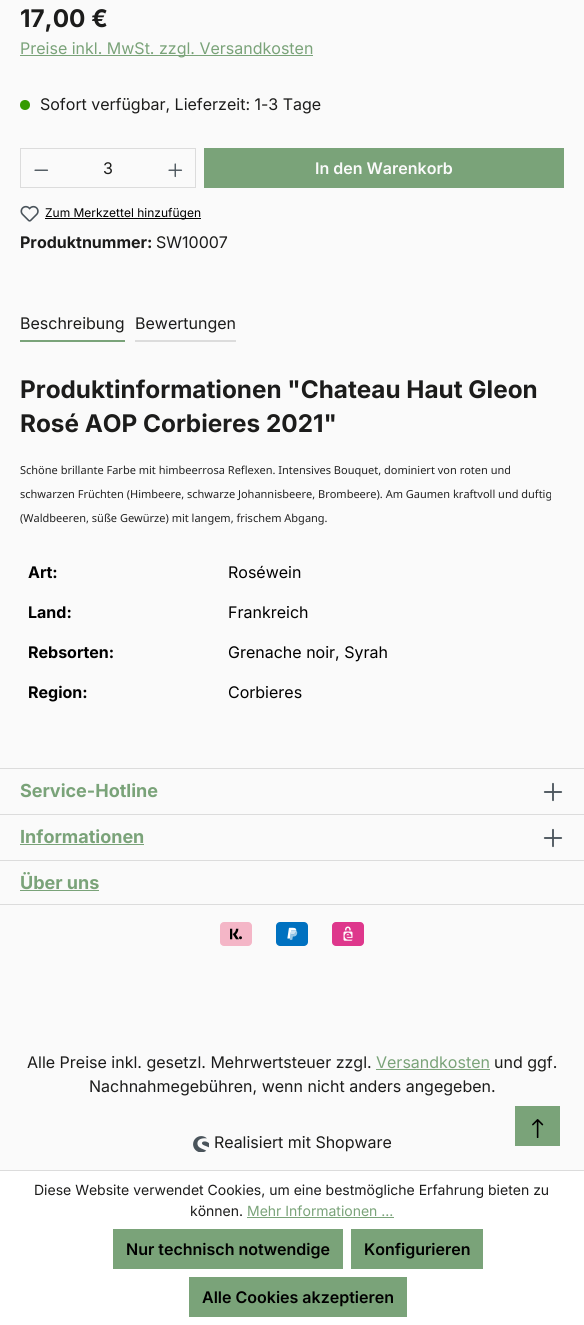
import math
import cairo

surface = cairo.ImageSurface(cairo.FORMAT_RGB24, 584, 1325)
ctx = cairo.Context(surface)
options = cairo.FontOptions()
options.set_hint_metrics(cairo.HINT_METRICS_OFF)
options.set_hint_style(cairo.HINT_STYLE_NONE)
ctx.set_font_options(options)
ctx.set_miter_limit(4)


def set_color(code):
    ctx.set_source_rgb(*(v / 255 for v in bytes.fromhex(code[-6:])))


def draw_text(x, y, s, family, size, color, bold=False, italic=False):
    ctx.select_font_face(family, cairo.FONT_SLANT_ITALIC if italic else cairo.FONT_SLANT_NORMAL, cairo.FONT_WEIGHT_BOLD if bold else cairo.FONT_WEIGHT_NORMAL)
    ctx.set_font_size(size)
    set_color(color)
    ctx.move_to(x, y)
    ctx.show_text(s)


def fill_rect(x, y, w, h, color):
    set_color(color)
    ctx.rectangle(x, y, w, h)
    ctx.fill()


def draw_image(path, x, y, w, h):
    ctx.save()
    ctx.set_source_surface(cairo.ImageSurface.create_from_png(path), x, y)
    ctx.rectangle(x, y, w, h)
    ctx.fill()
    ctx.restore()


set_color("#fafafa")
ctx.paint()
draw_text(20, 27, "17,00 €", "Inter", 24.3, "#1c1c1b", bold=True)
fill_rect(20, 55, 293, 1, "#7aa379")
draw_text(20, 54, "Preise inkl. MwSt. zzgl. Versandkosten", "Inter", 16, "#7aa379")
set_color("#369b00")
ctx.new_path()
ctx.arc(25, 105, 5, 0, 2 * math.pi)
ctx.fill()
draw_text(40, 110, "Sofort verfügbar, Lieferzeit: 1-3 Tage", "Inter", 16, "#1c1c1b")
fill_rect(20, 148, 176, 1, "#dcdcdc")
fill_rect(20, 187, 136, 1, "#dcdcdc")
fill_rect(20, 148, 1, 40, "#dcdcdc")
draw_image("assets/img1.png", 34, 169, 15, 2)
draw_text(103, 174, "3", "Inter", 16, "#1c1c1b")
fill_rect(195, 148, 1, 40, "#dcdcdc")
fill_rect(155, 187, 41, 1, "#dcdcdc")
draw_image("assets/img2.png", 168, 163, 15, 15)
fill_rect(204, 148, 360, 40, "#7aa379")
draw_text(315, 174, "In den Warenkorb", "Inter SemiBold", 16, "#fafafa")
draw_image("assets/img3.png", 20, 205, 19, 17)
fill_rect(45, 218, 156, 1, "#000000")
draw_text(45, 217, "Zum Merkzettel hinzufügen", "Inter", 12, "#000000")
draw_text(20, 248, "Produktnummer:", "Inter", 16, "#1c1c1b", bold=True)
draw_text(156, 248, "SW10007", "Inter", 16, "#1c1c1b")
fill_rect(20, 340, 105, 2, "#7aa379")
draw_text(20, 329, "Beschreibung", "Inter", 16, "#1c1c1b")
fill_rect(135, 340, 101, 2, "#dcdcdc")
draw_text(135, 329, "Bewertungen", "Inter", 16, "#1c1c1b")
draw_text(20, 398, "Produktinformationen \"Chateau Haut Gleon", "Inter", 24.3, "#1c1c1b", bold=True)
draw_text(20, 432, "Rosé AOP Corbieres 2021\"", "Inter", 24.3, "#1c1c1b", bold=True)
draw_text(20, 474, "Schöne brillante Farbe mit himbeerrosa Reflexen. Intensives Bouquet, dominiert von roten und", "Noto Sans", 11, "#222222")
draw_text(20, 498, "schwarzen Früchten (Himbeere, schwarze Johannisbeere, Brombeere). Am Gaumen kraftvoll und duftig", "Noto Sans", 11, "#222222")
draw_text(20, 522, "(Waldbeeren, süße Gewürze) mit langem, frischem Abgang.", "Noto Sans", 11, "#222222")
draw_text(28, 578, "Art:", "Inter", 16, "#000000", bold=True)
draw_text(228, 578, "Roséwein", "Inter", 16, "#000000")
draw_text(28, 618, "Land:", "Inter", 16, "#000000", bold=True)
draw_text(228, 618, "Frankreich", "Inter", 16, "#000000")
draw_text(28, 658, "Rebsorten:", "Inter", 16, "#000000", bold=True)
draw_text(228, 658, "Grenache noir, Syrah", "Inter", 16, "#000000")
draw_text(28, 698, "Region:", "Inter", 16, "#000000", bold=True)
draw_text(228, 698, "Corbieres", "Inter", 16, "#000000")
fill_rect(0, 768, 584, 1, "#dcdcdc")
fill_rect(0, 814, 584, 1, "#dcdcdc")
draw_text(20, 797, "Service-Hotline", "Inter", 18, "#7aa379", bold=True)
draw_image("assets/img4.png", 543, 782, 20, 20)
fill_rect(0, 860, 584, 1, "#dcdcdc")
draw_text(20, 843, "Informationen", "Inter", 18, "#7aa379", bold=True)
fill_rect(20, 844, 124, 1, "#7aa379")
draw_image("assets/img4.png", 543, 828, 20, 20)
fill_rect(0, 904, 584, 1, "#dcdcdc")
draw_text(20, 889, "Über uns", "Inter", 18, "#7aa379", bold=True)
fill_rect(20, 890, 79, 1, "#7aa379")
draw_image("assets/img5.png", 220, 922, 32, 24)
draw_image("assets/img6.png", 276, 922, 32, 24)
draw_image("assets/img7.png", 332, 922, 32, 24)
draw_text(27, 1068, "Alle Preise inkl. gesetzl. Mehrwertsteuer zzgl.", "Inter", 16, "#1c1c1b")
draw_text(376, 1068, "Versandkosten", "Inter", 16, "#7aa379")
fill_rect(376, 1069, 114, 1, "#7aa379")
draw_text(494, 1068, "und ggf.", "Inter", 16, "#1c1c1b")
draw_text(89, 1092, "Nachnahmegebühren, wenn nicht anders angegeben.", "Inter", 16, "#1c1c1b")
draw_image("assets/img8.png", 193, 1136, 16, 16)
draw_text(214, 1148, "Realisiert mit Shopware", "Inter", 16, "#1c1c1b")
fill_rect(515, 1106, 45, 40, "#7aa379")
draw_image("assets/img9.png", 532, 1119, 12, 19)
fill_rect(0, 1171, 584, 154, "#ffffff")
fill_rect(0, 1170, 584, 1, "#dcdcdc")
draw_text(34, 1195, "Diese Website verwendet Cookies, um eine bestmögliche Erfahrung bieten zu", "Inter", 14, "#1c1c1b")
draw_text(190, 1216, "können.", "Inter", 14, "#1c1c1b")
draw_text(247, 1216, "Mehr Informationen ...", "Inter", 14, "#7aa379")
fill_rect(247, 1217, 147, 1, "#7aa379")
fill_rect(113, 1229, 230, 40, "#7aa379")
draw_text(126, 1255, "Nur technisch notwendige", "Inter SemiBold", 16, "#000000")
fill_rect(351, 1229, 132, 40, "#7aa379")
draw_text(364, 1255, "Konfigurieren", "Inter SemiBold", 16, "#000000")
fill_rect(189, 1277, 218, 40, "#7aa379")
draw_text(202, 1303, "Alle Cookies akzeptieren", "Inter SemiBold", 16, "#000000")
surface.write_to_png("output.png")
